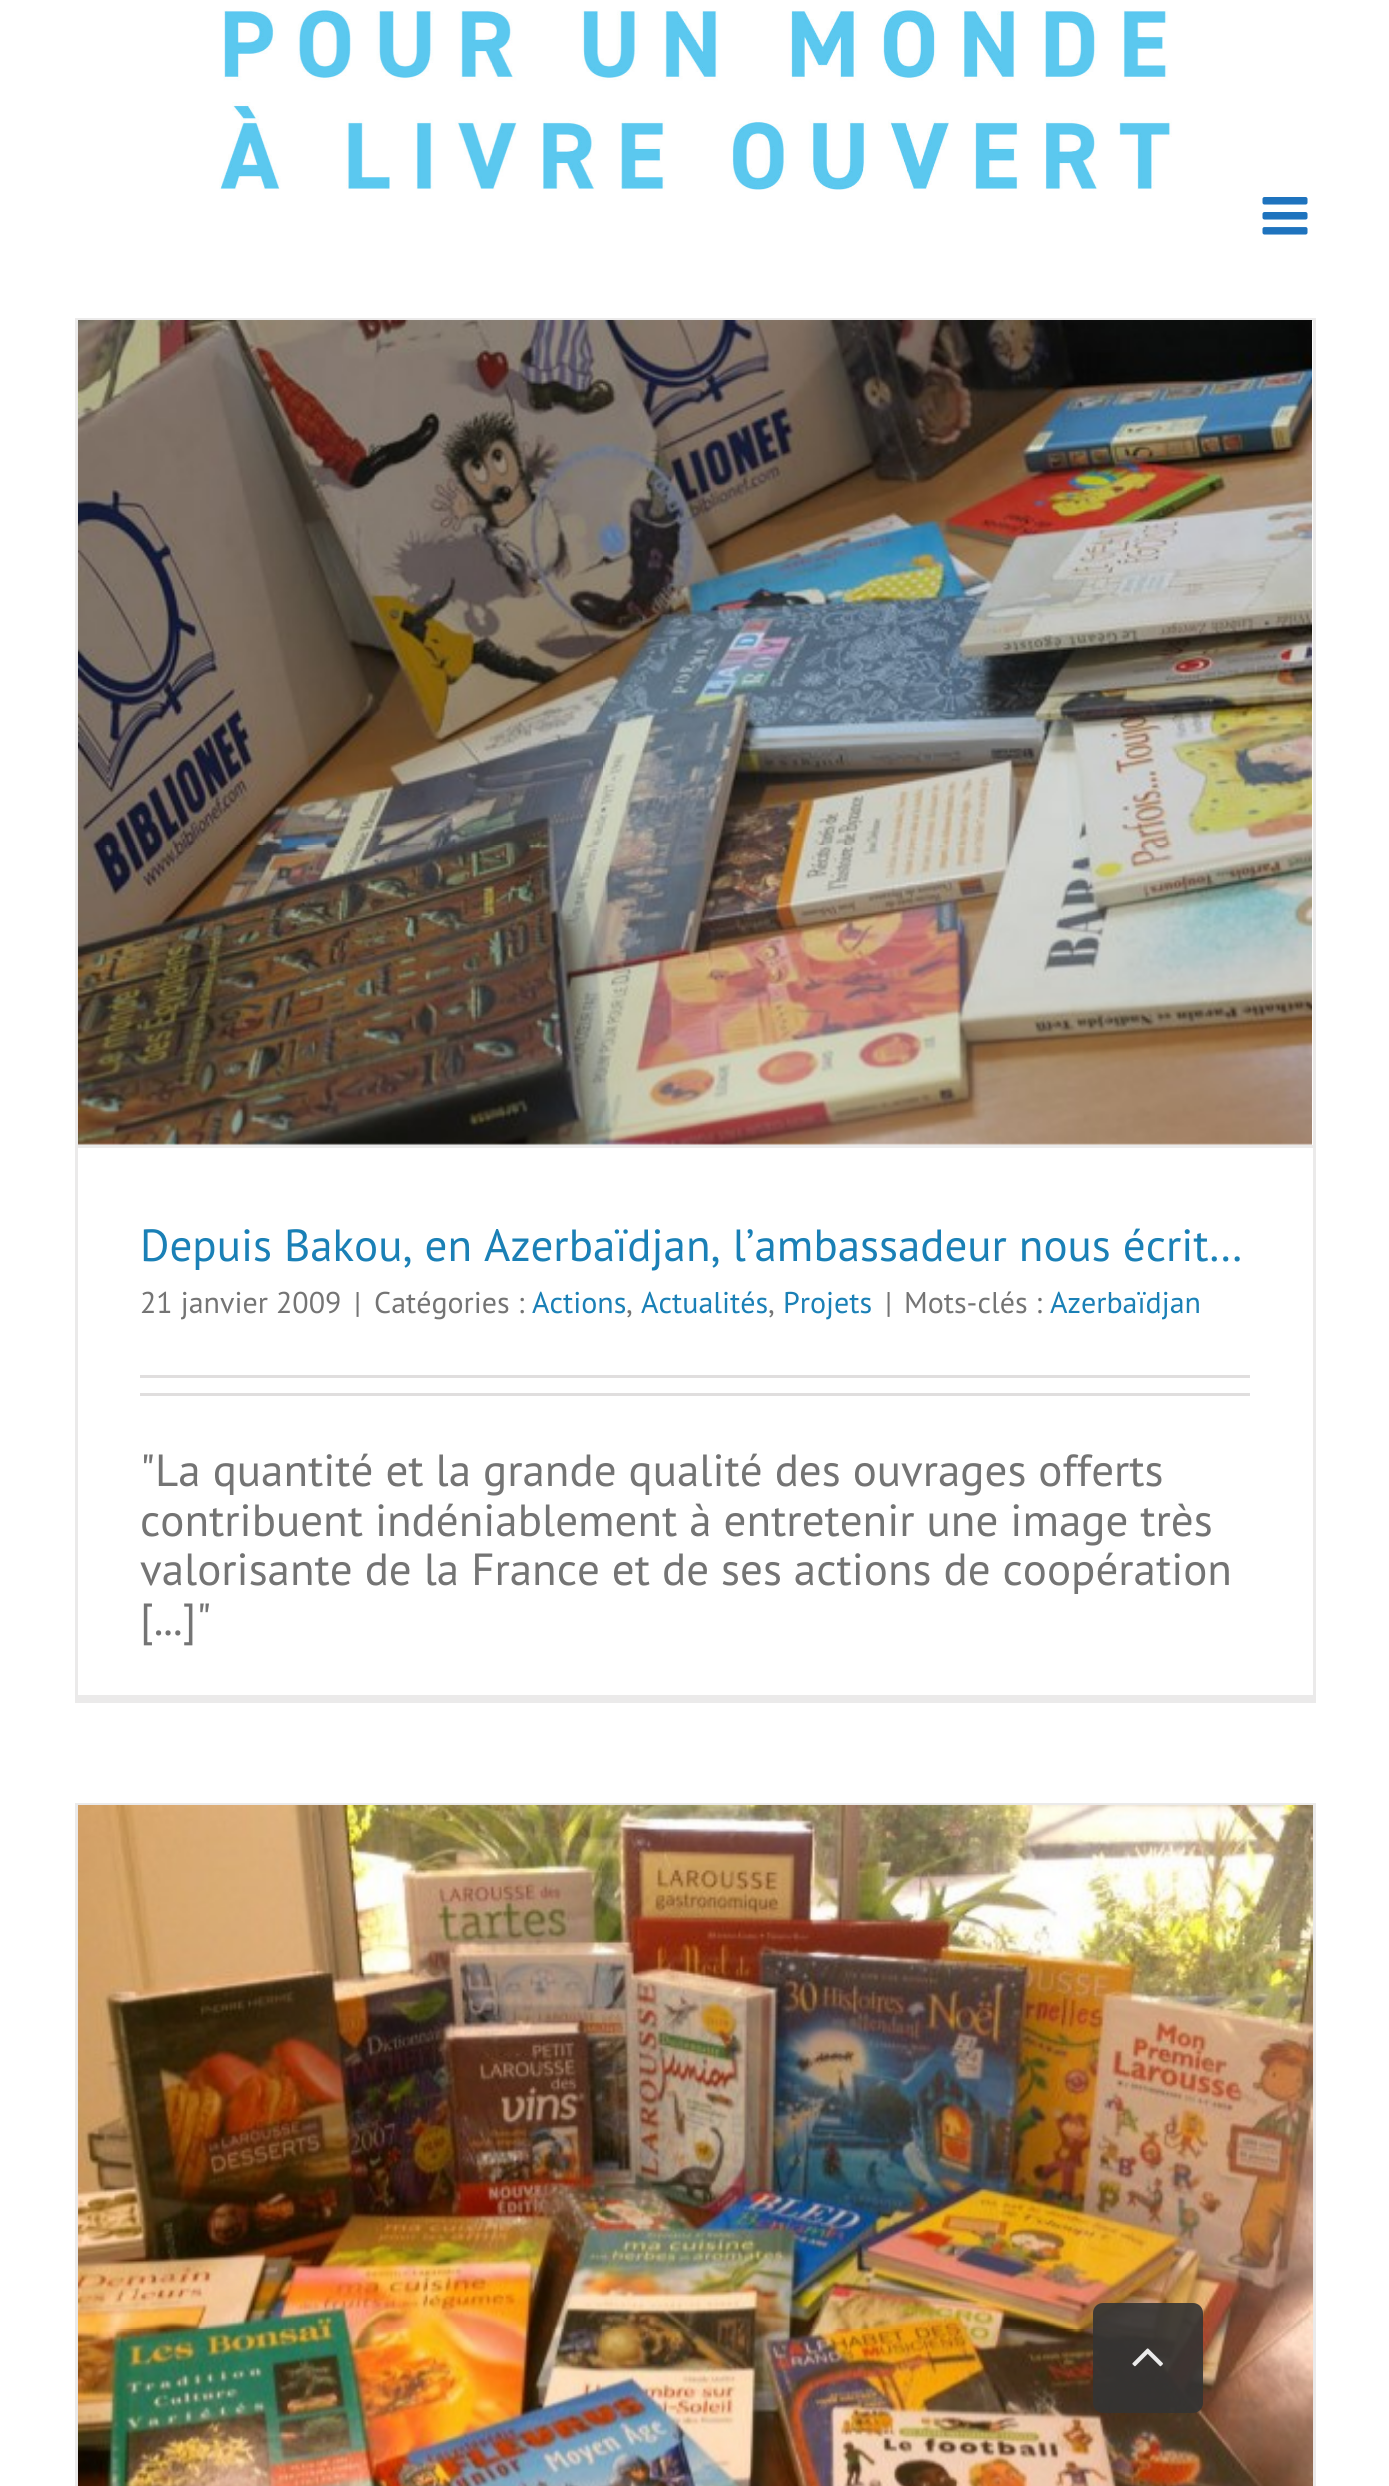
import math
import cairo

surface = cairo.ImageSurface(cairo.FORMAT_RGB24, 1389, 2486)
ctx = cairo.Context(surface)
options = cairo.FontOptions()
options.set_hint_metrics(cairo.HINT_METRICS_OFF)
options.set_hint_style(cairo.HINT_STYLE_NONE)
ctx.set_font_options(options)
ctx.set_miter_limit(4)


def set_color(code):
    ctx.set_source_rgb(*(v / 255 for v in bytes.fromhex(code[-6:])))


def draw_text(x, y, s, family, size, color, bold=False, italic=False):
    ctx.select_font_face(family, cairo.FONT_SLANT_ITALIC if italic else cairo.FONT_SLANT_NORMAL, cairo.FONT_WEIGHT_BOLD if bold else cairo.FONT_WEIGHT_NORMAL)
    ctx.set_font_size(size)
    set_color(color)
    ctx.move_to(x, y)
    ctx.show_text(s)


def fill_rect(x, y, w, h, color):
    set_color(color)
    ctx.rectangle(x, y, w, h)
    ctx.fill()


def rounded_rect(x, y, w, h, r):
    ctx.new_sub_path()
    for i, (u, v) in enumerate([(x + w - r, y + h - r), (x + r, y + h - r), (x + r, y + r), (x + w - r, y + r)]):
        ctx.arc(u, v, r, i * math.pi / 2, (i + 1) * math.pi / 2)
    ctx.close_path()


def draw_image(path, x, y, w, h):
    ctx.save()
    ctx.set_source_surface(cairo.ImageSurface.create_from_png(path), x, y)
    ctx.rectangle(x, y, w, h)
    ctx.fill()
    ctx.restore()


set_color("#ffffff")
ctx.paint()
draw_image("assets/img1.png", 219, 10, 953, 180)
draw_image("assets/img2.png", 1262, 197, 46, 38)
fill_rect(75, 318, 1240, 3, "#ebeaea")
fill_rect(1313, 318, 3, 1385, "#ebeaea")
fill_rect(75, 1695, 1240, 8, "#ebeaea")
fill_rect(75, 318, 3, 1385, "#ebeaea")
fill_rect(78, 1145, 1235, 3, "#ebeaea")
draw_image("assets/img3.png", 78, 320, 1234, 825)
draw_text(140, 1261, "Depuis Bakou, en Azerbaïdjan, l’ambassadeur nous écrit…", "PT Sans", 45, "#1a80b6")
draw_text(140, 1313, "21 janvier 2009", "PT Sans", 30, "#747474")
draw_text(354, 1313, "|", "PT Sans", 30, "#747474")
draw_text(374, 1313, "Catégories :", "PT Sans", 30, "#747474")
draw_text(532, 1313, "Actions", "PT Sans", 30, "#1a80b6")
draw_text(626, 1313, ",", "PT Sans", 30, "#747474")
draw_text(641, 1313, "Actualités", "PT Sans", 30, "#1a80b6")
draw_text(768, 1313, ",", "PT Sans", 30, "#747474")
draw_text(783, 1313, "Projets", "PT Sans", 30, "#1a80b6")
draw_text(885, 1313, "|", "PT Sans", 30, "#747474")
draw_text(904, 1313, "Mots-clés :", "PT Sans", 30, "#747474")
draw_text(1050, 1313, "Azerbaïdjan", "PT Sans", 30, "#1a80b6")
fill_rect(140, 1375, 1110, 3, "#e0dede")
fill_rect(140, 1393, 1110, 3, "#e0dede")
draw_text(140, 1486, "\"La quantité et la grande qualité des ouvrages offerts", "PT Sans", 45, "#747474")
draw_text(140, 1536, "contribuent indéniablement à entretenir une image très", "PT Sans", 45, "#747474")
draw_text(140, 1585, "valorisante de la France et de ses actions de coopération", "PT Sans", 45, "#747474")
draw_text(140, 1635, "[...]\"", "PT Sans", 45, "#747474")
fill_rect(75, 1803, 1240, 2, "#ebeaea")
fill_rect(1313, 1803, 3, 683, "#ebeaea")
fill_rect(75, 1803, 3, 683, "#ebeaea")
draw_image("assets/img4.png", 78, 1805, 1235, 681)
ctx.set_source_rgba(0.2, 0.2, 0.2, 0.9)
rounded_rect(1093, 2303, 110, 110, 10)
ctx.fill()
draw_image("assets/img5.png", 1132, 2348, 31, 19)
surface.write_to_png("output.png")
